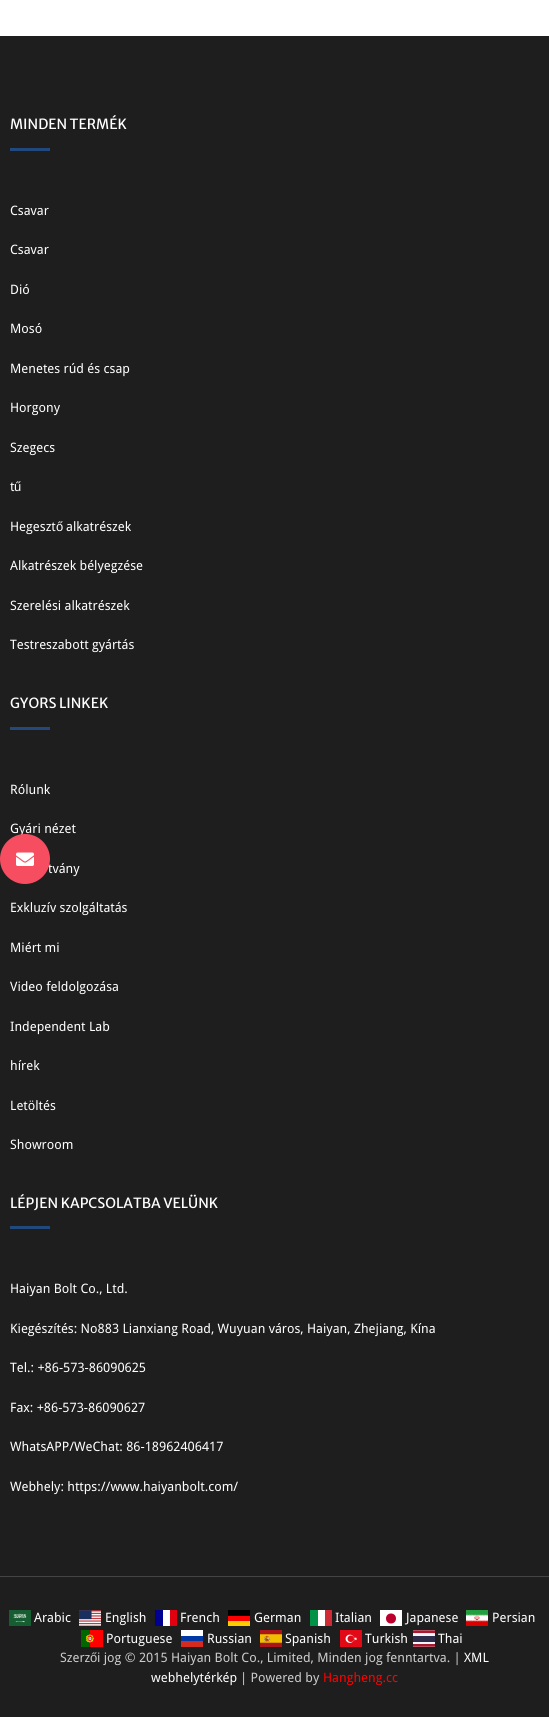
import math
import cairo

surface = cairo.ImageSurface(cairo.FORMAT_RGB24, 549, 1717)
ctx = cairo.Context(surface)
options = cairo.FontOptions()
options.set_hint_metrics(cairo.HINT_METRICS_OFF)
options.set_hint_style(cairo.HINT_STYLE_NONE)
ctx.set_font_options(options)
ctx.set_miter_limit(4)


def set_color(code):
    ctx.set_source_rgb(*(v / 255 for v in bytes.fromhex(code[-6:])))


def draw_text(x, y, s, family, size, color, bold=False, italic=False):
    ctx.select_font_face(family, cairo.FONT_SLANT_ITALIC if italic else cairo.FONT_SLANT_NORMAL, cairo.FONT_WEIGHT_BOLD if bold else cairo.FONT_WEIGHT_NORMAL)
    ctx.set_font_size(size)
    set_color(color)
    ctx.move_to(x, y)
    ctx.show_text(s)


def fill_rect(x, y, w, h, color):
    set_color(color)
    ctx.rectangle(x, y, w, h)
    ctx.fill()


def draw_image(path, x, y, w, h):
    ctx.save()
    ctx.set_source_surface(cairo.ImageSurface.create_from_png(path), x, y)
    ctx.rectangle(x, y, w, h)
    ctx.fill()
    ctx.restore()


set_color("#ffffff")
ctx.paint()
fill_rect(0, 36, 549, 1681, "#1e1e1e")
draw_text(10, 129, "MINDEN TERMÉK", "Merriweather Sans", 14, "#ffffff")
fill_rect(10, 148, 40, 3, "#22497d")
draw_text(10, 215, "Csavar", "Droid Sans", 13, "#ffffff")
draw_text(10, 254, "Csavar", "Droid Sans", 13, "#ffffff")
draw_text(10, 294, "Dió", "Droid Sans", 13, "#ffffff")
draw_text(10, 333, "Mosó", "Droid Sans", 13, "#ffffff")
draw_text(10, 373, "Menetes rúd és csap", "Droid Sans", 13, "#ffffff")
draw_text(10, 412, "Horgony", "Droid Sans", 13, "#ffffff")
draw_text(10, 452, "Szegecs", "Droid Sans", 13, "#ffffff")
draw_text(10, 491, "t", "Droid Sans", 13, "#ffffff")
draw_text(14, 491, "ű", "Liberation Sans", 13, "#ffffff")
draw_text(10, 531, "Hegeszt", "Droid Sans", 13, "#ffffff")
draw_text(56, 531, "ő", "Liberation Sans", 13, "#ffffff")
draw_text(66, 531, "alkatrészek", "Droid Sans", 13, "#ffffff")
draw_text(10, 570, "Alkatrészek bélyegzése", "Droid Sans", 13, "#ffffff")
draw_text(10, 610, "Szerelési alkatrészek", "Droid Sans", 13, "#ffffff")
draw_text(10, 649, "Testreszabott gyártás", "Droid Sans", 13, "#ffffff")
draw_text(10, 708, "GYORS LINKEK", "Merriweather Sans", 14, "#ffffff")
fill_rect(10, 727, 40, 3, "#22497d")
draw_text(10, 794, "Rólunk", "Droid Sans", 13, "#ffffff")
draw_text(10, 833, "Gyári nézet", "Droid Sans", 13, "#ffffff")
draw_text(48, 873, "tvány", "Droid Sans", 13, "#ffffff")
draw_text(10, 912, "Exkluzív szolgáltatás", "Droid Sans", 13, "#ffffff")
draw_text(10, 952, "Miért mi", "Droid Sans", 13, "#ffffff")
draw_text(10, 991, "Video feldolgozása", "Droid Sans", 13, "#ffffff")
draw_text(10, 1031, "Independent Lab", "Droid Sans", 13, "#ffffff")
draw_text(10, 1070, "hírek", "Droid Sans", 13, "#ffffff")
draw_text(10, 1110, "Letöltés", "Droid Sans", 13, "#ffffff")
draw_text(10, 1149, "Showroom", "Droid Sans", 13, "#ffffff")
draw_text(10, 1208, "LÉPJEN KAPCSOLATBA VELÜNK", "Merriweather Sans", 14, "#ffffff")
fill_rect(10, 1226, 40, 3, "#22497d")
draw_text(10, 1293, "Haiyan Bolt Co., Ltd.", "Droid Sans", 13, "#ffffff")
draw_text(10, 1333, "Kiegészítés: No883 Lianxiang Road, Wuyuan város, Haiyan, Zhejiang, Kína", "Droid Sans", 13, "#ffffff")
draw_text(10, 1372, "Tel.: +86-573-86090625", "Droid Sans", 13, "#ffffff")
draw_text(10, 1412, "Fax: +86-573-86090627", "Droid Sans", 13, "#ffffff")
draw_text(10, 1451, "WhatsAPP/WeChat: 86-18962406417", "Droid Sans", 13, "#ffffff")
draw_text(10, 1491, "Webhely: https://www.haiyanbolt.com/", "Droid Sans", 13, "#ffffff")
fill_rect(0, 1576, 549, 1, "#444444")
draw_image("assets/img1.png", 9, 1610, 22, 16)
draw_text(34, 1622, "Arabic", "Droid Sans", 13, "#ffffff")
draw_image("assets/img2.png", 79, 1610, 22, 16)
draw_text(105, 1622, "English", "Droid Sans", 13, "#ffffff")
draw_text(180, 1622, "French", "Droid Sans", 13, "#ffffff")
fill_rect(163, 1610, 7, 16, "#ffffff")
fill_rect(155, 1610, 8, 16, "#000091")
fill_rect(170, 1610, 7, 16, "#e1000f")
draw_text(254, 1622, "German", "Droid Sans", 13, "#ffffff")
fill_rect(228, 1621, 22, 5, "#ffcc00")
fill_rect(228, 1610, 22, 6, "#000001")
fill_rect(228, 1616, 22, 5, "#ff0000")
draw_text(335, 1622, "Italian", "Droid Sans", 13, "#ffffff")
fill_rect(318, 1610, 7, 16, "#ffffff")
fill_rect(310, 1610, 8, 16, "#009246")
fill_rect(325, 1610, 7, 16, "#ce2b37")
draw_text(406, 1622, "Japanese", "Droid Sans", 13, "#ffffff")
fill_rect(380, 1610, 22, 16, "#ffffff")
set_color("#bc002d")
ctx.new_path()
ctx.arc(391, 1618.5, 5, 0, 2 * math.pi)
ctx.fill()
draw_image("assets/img3.png", 466, 1610, 22, 16)
draw_text(492, 1622, "Persian", "Droid Sans", 13, "#ffffff")
draw_image("assets/img4.png", 81, 1630, 22, 17)
draw_text(106, 1643, "Portuguese", "Droid Sans", 13, "#ffffff")
draw_text(207, 1643, "Russian", "Droid Sans", 13, "#ffffff")
fill_rect(181, 1630, 22, 6, "#ffffff")
fill_rect(181, 1636, 22, 5, "#0039a6")
fill_rect(181, 1641, 22, 6, "#d52b1e")
draw_image("assets/img5.png", 260, 1630, 22, 17)
draw_text(285, 1643, "Spanish", "Droid Sans", 13, "#ffffff")
draw_image("assets/img6.png", 340, 1630, 22, 17)
draw_text(365, 1643, "Turkish", "Droid Sans", 13, "#ffffff")
draw_image("assets/img7.png", 413, 1630, 22, 17)
draw_text(438, 1643, "Thai", "Droid Sans", 13, "#ffffff")
draw_text(60, 1662, "Szerz", "Droid Sans", 13, "#cccccc")
draw_text(90, 1662, "ő", "Liberation Sans", 13, "#cccccc")
draw_text(97, 1662, "i jog © 2015 Haiyan Bolt Co., Limited, Minden jog fenntartva. |", "Droid Sans", 13, "#cccccc")
draw_text(464, 1662, "XML", "Droid Sans", 13, "#ffffff")
draw_text(151, 1682, "webhelytérkép", "Droid Sans", 13, "#ffffff")
draw_text(240, 1682, "| Powered by", "Droid Sans", 13, "#cccccc")
draw_text(323, 1682, "Hangheng.cc", "Droid Sans", 13, "#ff0000")
set_color("#f64e60")
ctx.new_path()
ctx.arc(25, 859, 25, 0, 2 * math.pi)
ctx.fill()
draw_image("assets/img8.png", 16, 852, 18, 14)
surface.write_to_png("output.png")
